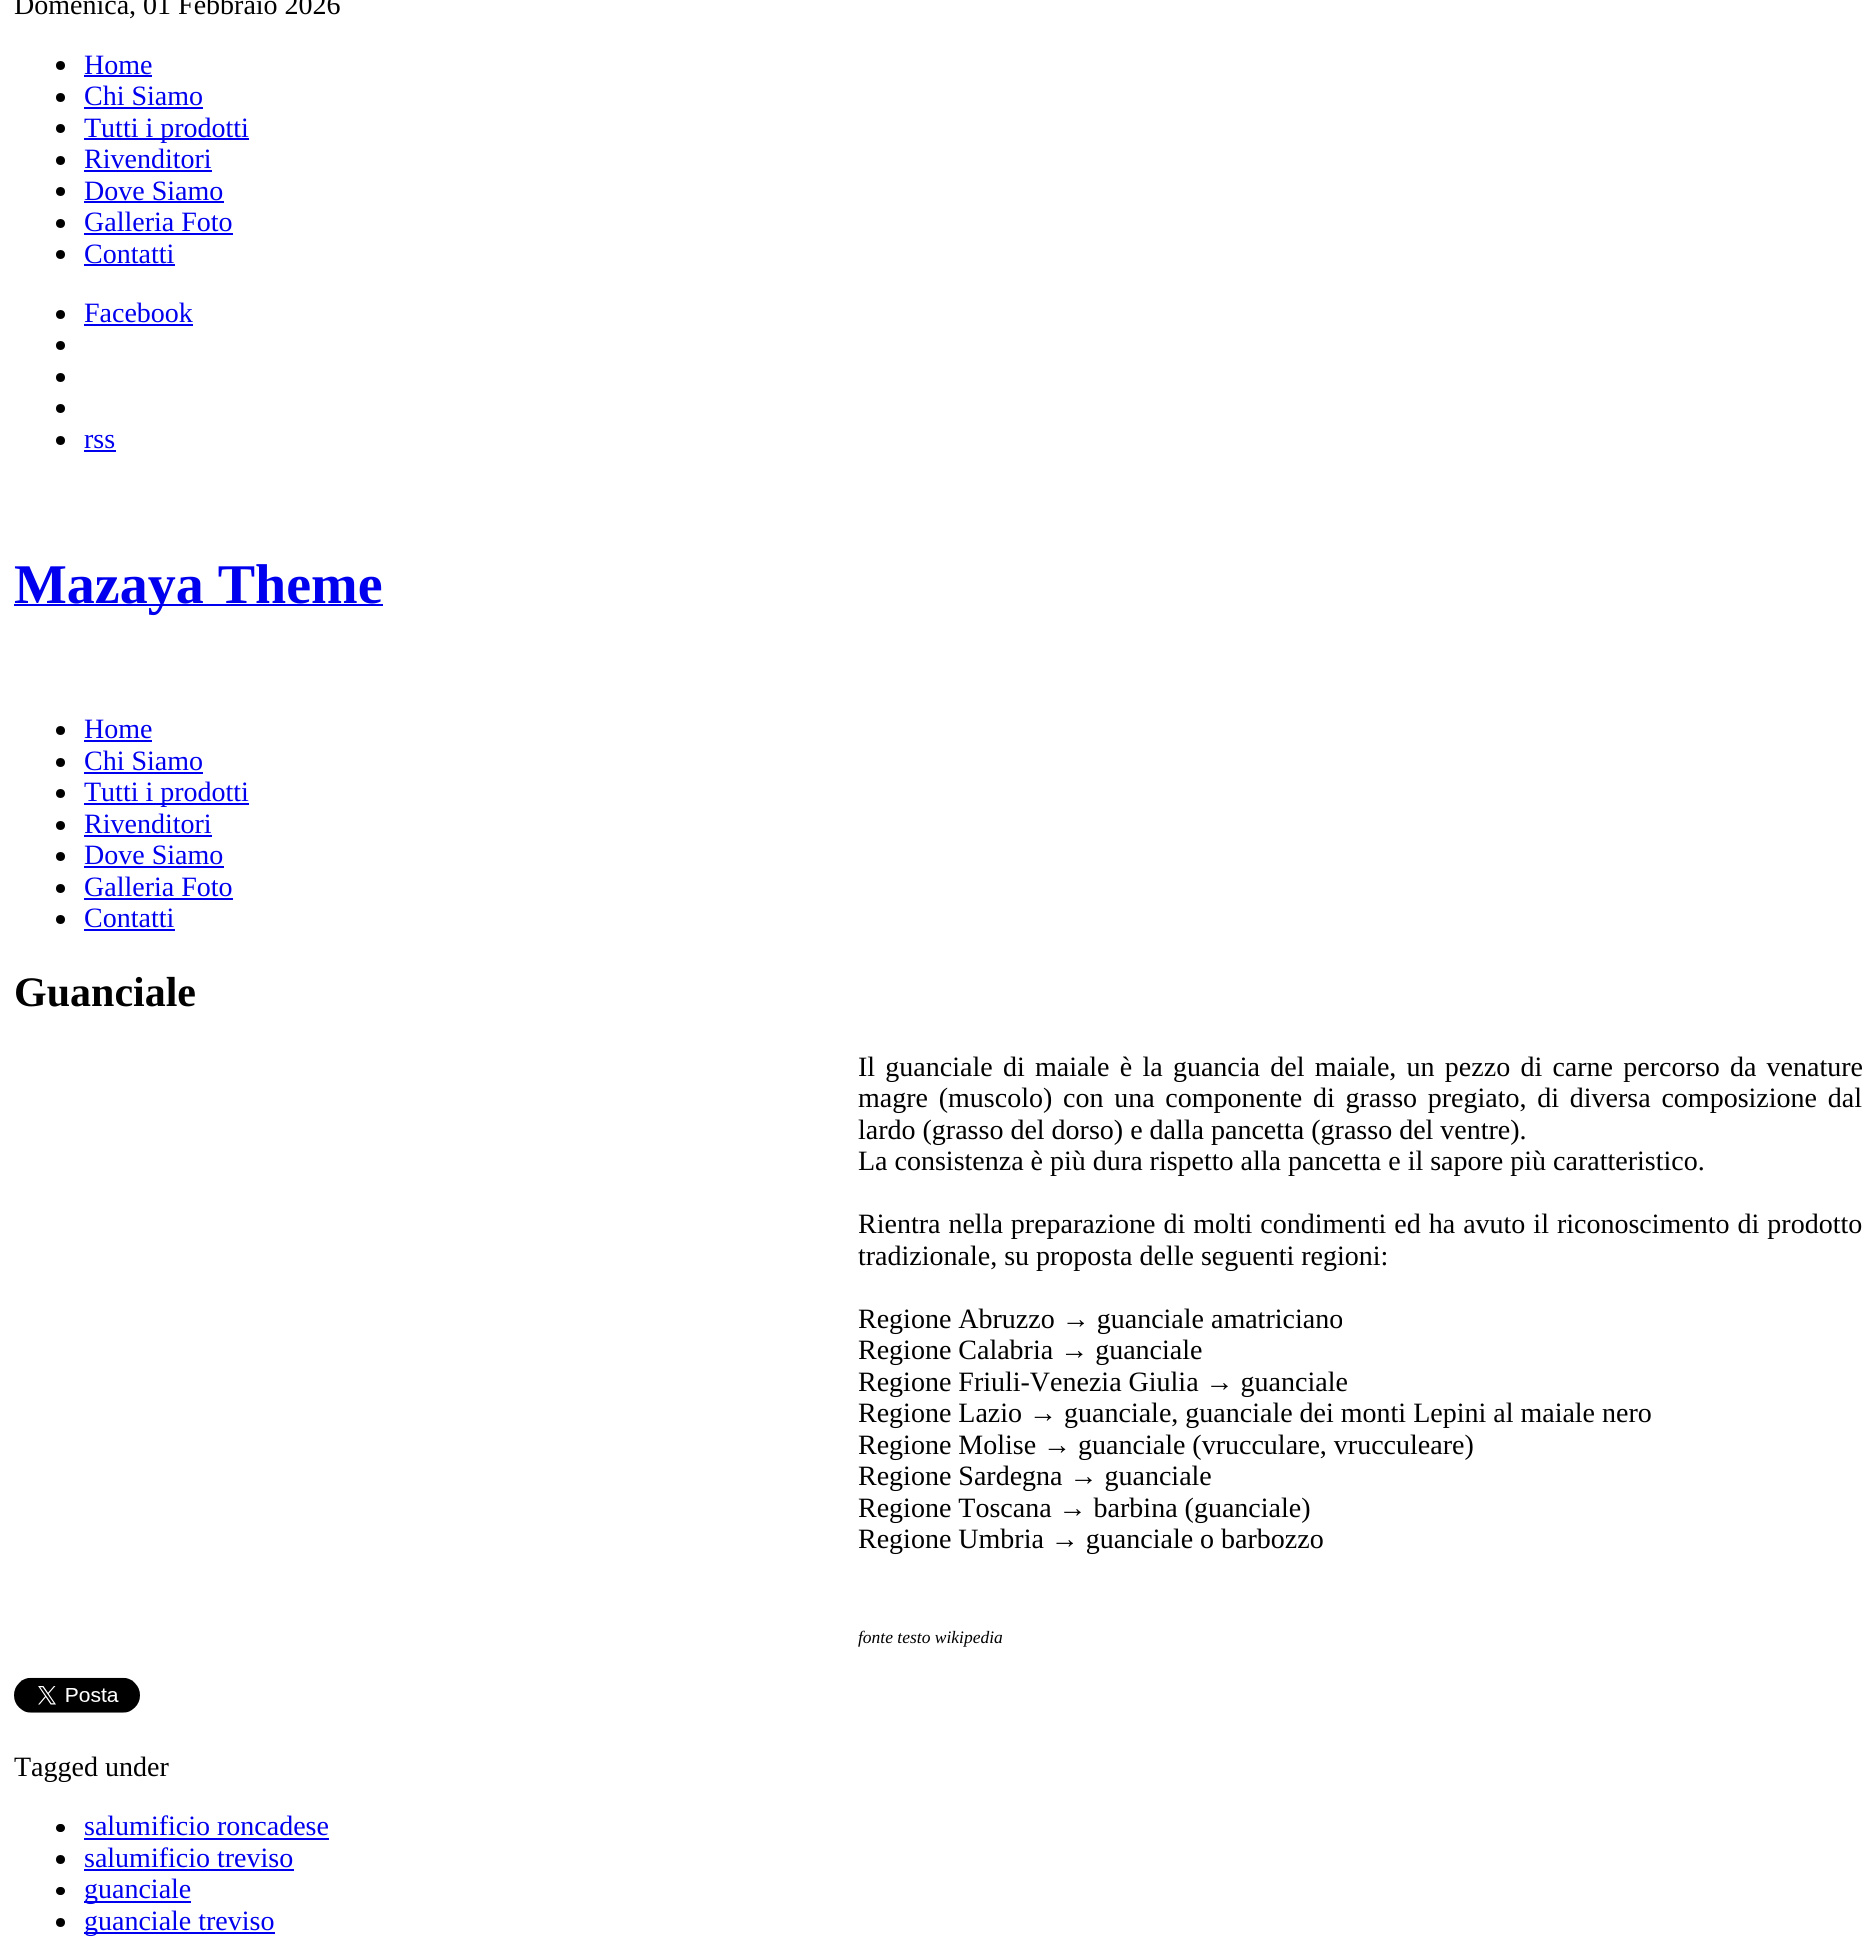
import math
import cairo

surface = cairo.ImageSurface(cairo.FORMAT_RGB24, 1875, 1939)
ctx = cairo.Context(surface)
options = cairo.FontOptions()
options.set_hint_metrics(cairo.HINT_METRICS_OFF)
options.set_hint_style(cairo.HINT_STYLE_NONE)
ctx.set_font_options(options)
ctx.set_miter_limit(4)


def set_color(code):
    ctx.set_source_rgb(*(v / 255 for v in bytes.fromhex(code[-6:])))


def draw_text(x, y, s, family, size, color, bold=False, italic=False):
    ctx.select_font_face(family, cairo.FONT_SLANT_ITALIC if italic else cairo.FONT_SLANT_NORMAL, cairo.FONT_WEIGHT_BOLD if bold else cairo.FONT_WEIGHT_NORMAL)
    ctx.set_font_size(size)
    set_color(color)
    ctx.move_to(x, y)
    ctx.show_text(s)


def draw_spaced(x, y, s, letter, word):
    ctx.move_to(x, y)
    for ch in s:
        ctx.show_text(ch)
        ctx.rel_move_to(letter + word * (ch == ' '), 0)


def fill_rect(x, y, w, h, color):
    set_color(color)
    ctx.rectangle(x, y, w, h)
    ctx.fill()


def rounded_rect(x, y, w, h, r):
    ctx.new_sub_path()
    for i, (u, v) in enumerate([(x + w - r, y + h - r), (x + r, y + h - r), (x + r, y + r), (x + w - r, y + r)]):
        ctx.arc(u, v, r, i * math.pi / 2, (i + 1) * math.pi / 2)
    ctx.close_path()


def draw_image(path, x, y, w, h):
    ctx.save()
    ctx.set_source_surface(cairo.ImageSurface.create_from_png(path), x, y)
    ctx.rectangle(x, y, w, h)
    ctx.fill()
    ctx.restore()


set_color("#ffffff")
ctx.paint()
draw_text(14, 14, "Domenica, 01 Febbraio 2026", "Liberation Serif", 28, "#000000")
ctx.new_path()
ctx.arc(60.5, 65.5, 4.5, 0, 2 * math.pi)
ctx.fill()
draw_text(84, 74, "Home", "Liberation Serif", 28, "#0000ee")
fill_rect(84, 75, 68, 2, "#0000ee")
set_color("#000000")
ctx.new_path()
ctx.arc(60.5, 97.5, 4.5, 0, 2 * math.pi)
ctx.fill()
draw_text(84, 105, "Chi Siamo", "Liberation Serif", 28, "#0000ee")
fill_rect(84, 107, 119, 2, "#0000ee")
set_color("#000000")
ctx.new_path()
ctx.arc(60.5, 128.5, 4.5, 0, 2 * math.pi)
ctx.fill()
fill_rect(84, 138, 165, 2, "#0000ee")
draw_text(84, 137, "Tutti i prodotti", "Liberation Serif", 28, "#0000ee")
set_color("#000000")
ctx.new_path()
ctx.arc(60.5, 160.5, 4.5, 0, 2 * math.pi)
ctx.fill()
draw_text(84, 168, "Rivenditori", "Liberation Serif", 28, "#0000ee")
fill_rect(84, 170, 128, 2, "#0000ee")
set_color("#000000")
ctx.new_path()
ctx.arc(60.5, 191.5, 4.5, 0, 2 * math.pi)
ctx.fill()
draw_text(84, 200, "Dove Siamo", "Liberation Serif", 28, "#0000ee")
fill_rect(84, 201, 140, 2, "#0000ee")
set_color("#000000")
ctx.new_path()
ctx.arc(60.5, 223.5, 4.5, 0, 2 * math.pi)
ctx.fill()
draw_text(84, 231, "Galleria Foto", "Liberation Serif", 28, "#0000ee")
fill_rect(84, 233, 149, 2, "#0000ee")
set_color("#000000")
ctx.new_path()
ctx.arc(60.5, 254.5, 4.5, 0, 2 * math.pi)
ctx.fill()
draw_text(84, 263, "Contatti", "Liberation Serif", 28, "#0000ee")
fill_rect(84, 264, 91, 2, "#0000ee")
set_color("#000000")
ctx.new_path()
ctx.arc(60.5, 314.5, 4.5, 0, 2 * math.pi)
ctx.fill()
draw_text(84, 322, "Facebook", "Liberation Serif", 28, "#0000ee")
fill_rect(84, 324, 109, 2, "#0000ee")
set_color("#000000")
ctx.new_path()
ctx.arc(60.5, 345.5, 4.5, 0, 2 * math.pi)
ctx.fill()
ctx.arc(60.5, 377.5, 4.5, 0, 2 * math.pi)
ctx.fill()
ctx.arc(60.5, 408.5, 4.5, 0, 2 * math.pi)
ctx.fill()
ctx.arc(60.5, 440.5, 4.5, 0, 2 * math.pi)
ctx.fill()
draw_text(84, 448, "rss", "Liberation Serif", 28, "#0000ee")
fill_rect(84, 450, 32, 2, "#0000ee")
fill_rect(14, 604, 369, 2, "#0000ee")
draw_text(14, 603, "Mazaya Theme", "Liberation Serif", 56, "#0000ee", bold=True)
set_color("#000000")
ctx.new_path()
ctx.arc(60.5, 730.5, 4.5, 0, 2 * math.pi)
ctx.fill()
draw_text(84, 738, "Home", "Liberation Serif", 28, "#0000ee")
fill_rect(84, 740, 68, 2, "#0000ee")
set_color("#000000")
ctx.new_path()
ctx.arc(60.5, 762.5, 4.5, 0, 2 * math.pi)
ctx.fill()
draw_text(84, 770, "Chi Siamo", "Liberation Serif", 28, "#0000ee")
fill_rect(84, 772, 119, 2, "#0000ee")
set_color("#000000")
ctx.new_path()
ctx.arc(60.5, 793.5, 4.5, 0, 2 * math.pi)
ctx.fill()
fill_rect(84, 803, 165, 2, "#0000ee")
draw_text(84, 801, "Tutti i prodotti", "Liberation Serif", 28, "#0000ee")
set_color("#000000")
ctx.new_path()
ctx.arc(60.5, 825.5, 4.5, 0, 2 * math.pi)
ctx.fill()
draw_text(84, 833, "Rivenditori", "Liberation Serif", 28, "#0000ee")
fill_rect(84, 835, 128, 2, "#0000ee")
set_color("#000000")
ctx.new_path()
ctx.arc(60.5, 856.5, 4.5, 0, 2 * math.pi)
ctx.fill()
draw_text(84, 864, "Dove Siamo", "Liberation Serif", 28, "#0000ee")
fill_rect(84, 866, 140, 2, "#0000ee")
set_color("#000000")
ctx.new_path()
ctx.arc(60.5, 888.5, 4.5, 0, 2 * math.pi)
ctx.fill()
draw_text(84, 896, "Galleria Foto", "Liberation Serif", 28, "#0000ee")
fill_rect(84, 898, 149, 2, "#0000ee")
set_color("#000000")
ctx.new_path()
ctx.arc(60.5, 919.5, 4.5, 0, 2 * math.pi)
ctx.fill()
draw_text(84, 927, "Contatti", "Liberation Serif", 28, "#0000ee")
fill_rect(84, 929, 91, 2, "#0000ee")
draw_text(14, 1006, "Guanciale", "Liberation Serif", 42, "#000000", bold=True)
ctx.select_font_face("Liberation Serif")
ctx.set_font_size(28)
draw_spaced(858, 1076, "Il guanciale di maiale è la guancia del maiale, un pezzo di carne percorso da venature", 0, 3.25)
draw_spaced(858, 1107, "magre (muscolo) con una componente di grasso pregiato, di diversa composizione dal", 0, 3.75)
draw_text(858, 1139, "lardo (grasso del dorso) e dalla pancetta (grasso del ventre).", "Liberation Serif", 28, "#000000")
draw_text(858, 1170, "La consistenza è più dura rispetto alla pancetta e il sapore più caratteristico.", "Liberation Serif", 28, "#000000")
draw_spaced(858, 1233, "Rientra nella preparazione di molti condimenti ed ha avuto il riconoscimento di prodotto", 0, 1)
draw_text(858, 1265, "tradizionale, su proposta delle seguenti regioni:", "Liberation Serif", 28, "#000000")
draw_text(858, 1328, "Regione Abruzzo → guanciale amatriciano", "Liberation Serif", 28, "#000000")
draw_text(858, 1359, "Regione Calabria → guanciale", "Liberation Serif", 28, "#000000")
draw_text(858, 1391, "Regione Friuli-Venezia Giulia → guanciale", "Liberation Serif", 28, "#000000")
draw_text(858, 1422, "Regione Lazio → guanciale, guanciale dei monti Lepini al maiale nero", "Liberation Serif", 28, "#000000")
draw_text(858, 1454, "Regione Molise → guanciale (vrucculare, vrucculeare)", "Liberation Serif", 28, "#000000")
draw_text(858, 1485, "Regione Sardegna → guanciale", "Liberation Serif", 28, "#000000")
draw_text(858, 1517, "Regione Toscana → barbina (guanciale)", "Liberation Serif", 28, "#000000")
draw_text(858, 1548, "Regione Umbria → guanciale o barbozzo", "Liberation Serif", 28, "#000000")
draw_text(858, 1643, "fonte testo wikipedia", "Liberation Serif", 17.5, "#000000", italic=True)
draw_image("assets/img1.png", 14, 1677, 126, 36)
draw_text(14, 1776, "Tagged under", "Liberation Serif", 28, "#000000")
rounded_rect(56, 1824, 9, 8, 4)
ctx.fill()
draw_text(84, 1835, "salumificio roncadese", "Liberation Serif", 28, "#0000ee")
fill_rect(84, 1838, 245, 2, "#0000ee")
set_color("#000000")
ctx.new_path()
ctx.arc(60.5, 1859.5, 4.5, 0, 2 * math.pi)
ctx.fill()
draw_text(84, 1867, "salumificio treviso", "Liberation Serif", 28, "#0000ee")
fill_rect(84, 1869, 210, 2, "#0000ee")
set_color("#000000")
rounded_rect(56, 1887, 9, 8, 4)
ctx.fill()
fill_rect(84, 1901, 107, 2, "#0000ee")
draw_text(84, 1898, "guanciale", "Liberation Serif", 28, "#0000ee")
set_color("#000000")
ctx.new_path()
ctx.arc(60.5, 1922.5, 4.5, 0, 2 * math.pi)
ctx.fill()
fill_rect(84, 1932, 191, 2, "#0000ee")
draw_text(84, 1930, "guanciale treviso", "Liberation Serif", 28, "#0000ee")
surface.write_to_png("output.png")
